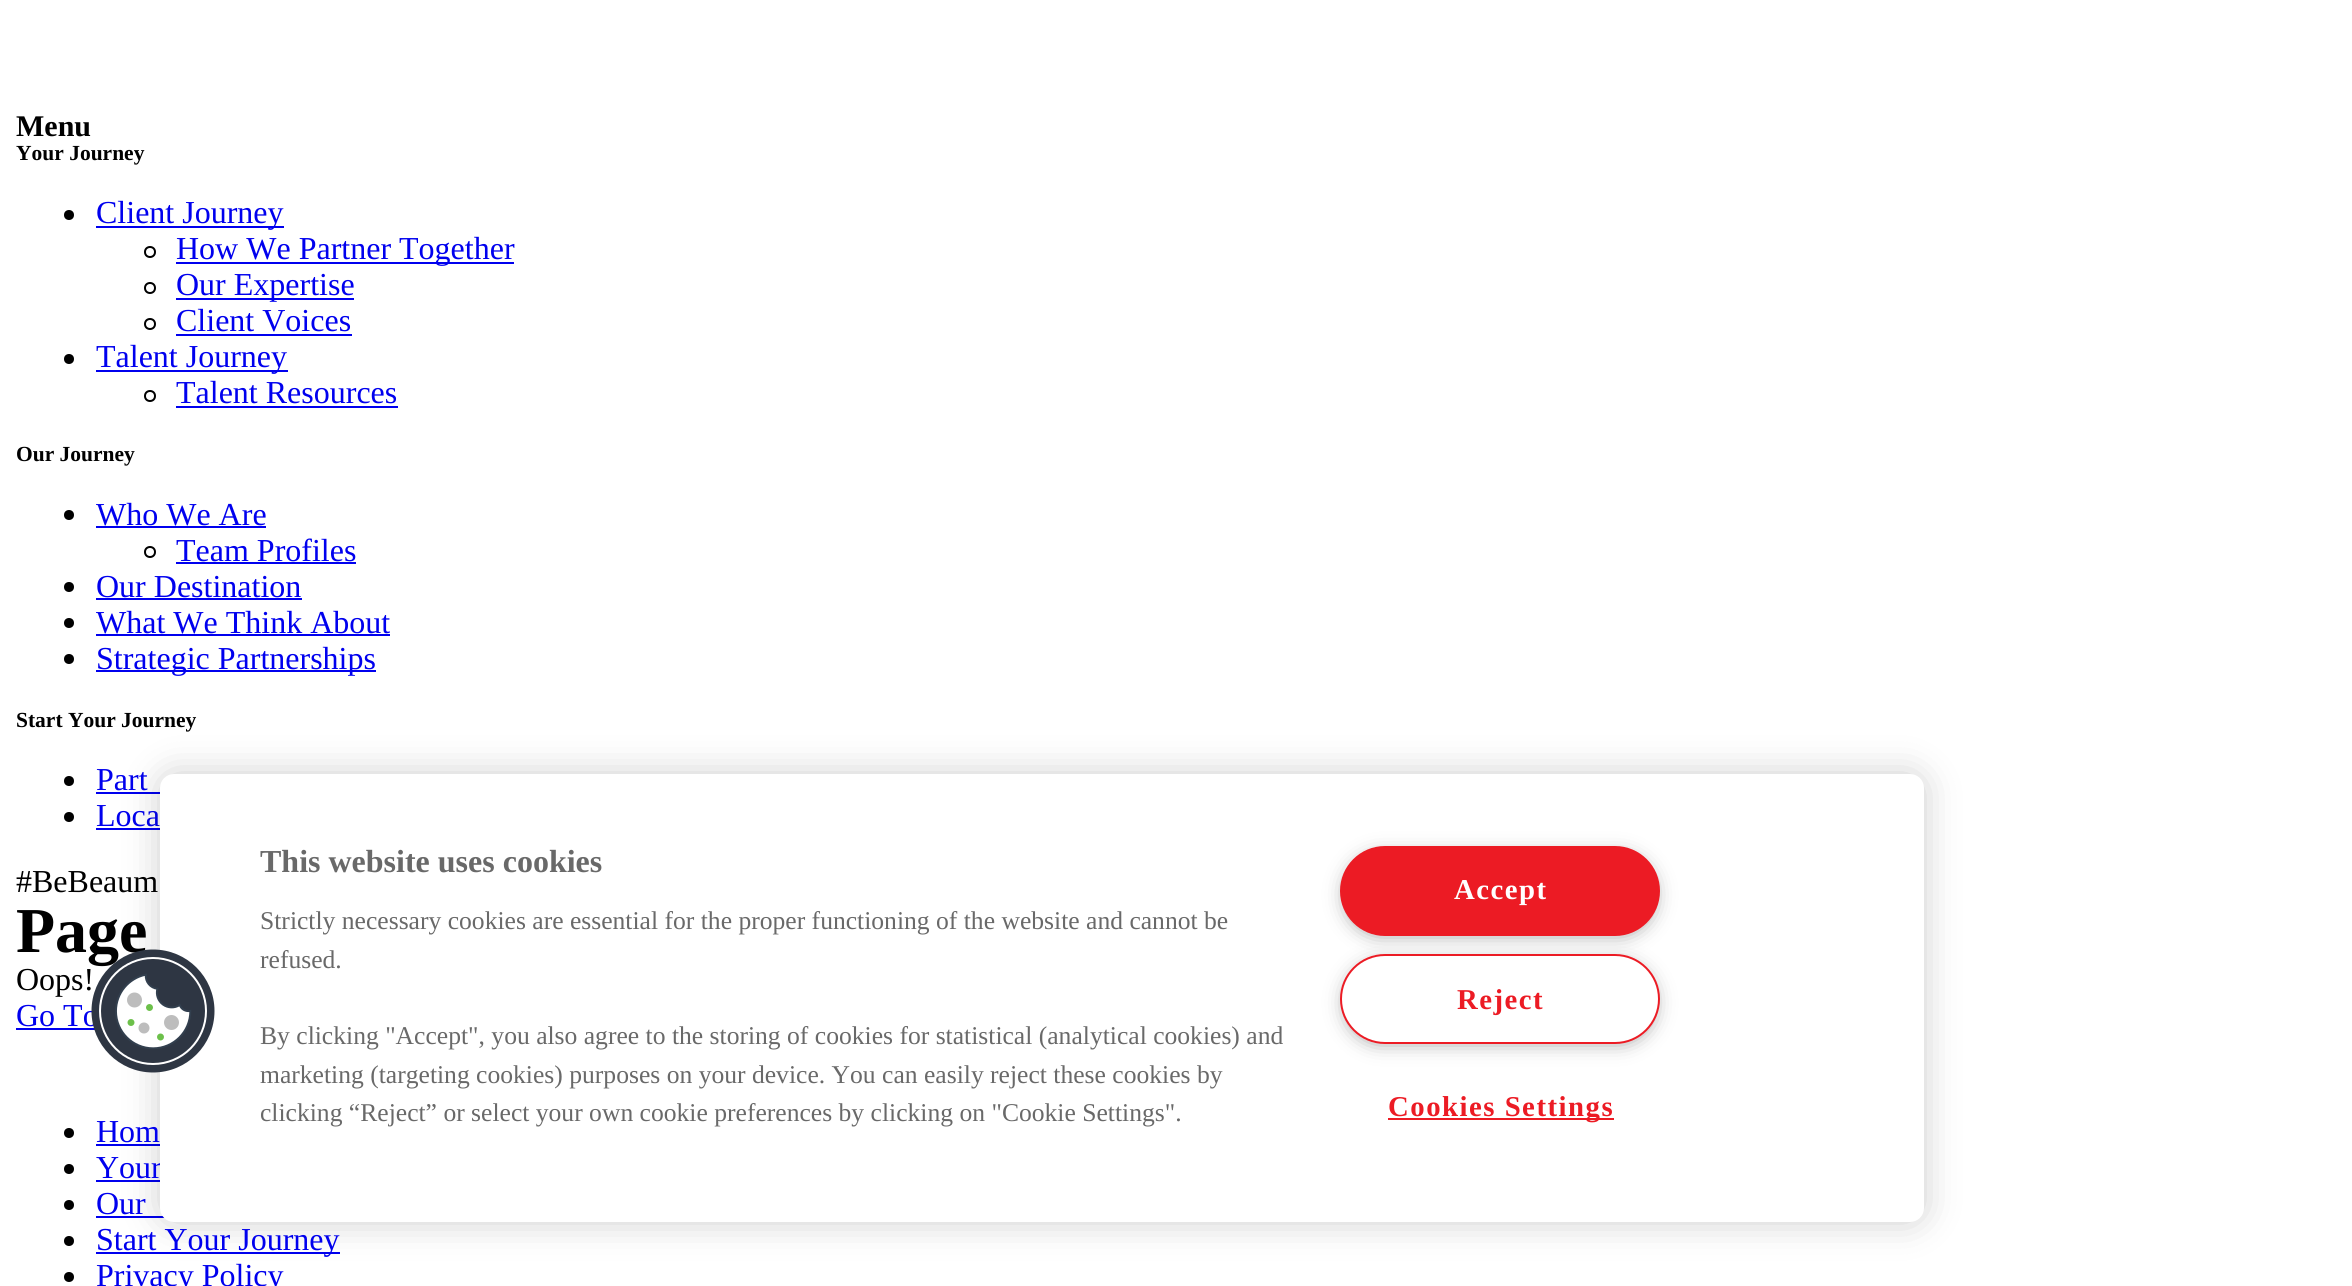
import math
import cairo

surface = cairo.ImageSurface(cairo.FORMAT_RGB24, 2352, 1286)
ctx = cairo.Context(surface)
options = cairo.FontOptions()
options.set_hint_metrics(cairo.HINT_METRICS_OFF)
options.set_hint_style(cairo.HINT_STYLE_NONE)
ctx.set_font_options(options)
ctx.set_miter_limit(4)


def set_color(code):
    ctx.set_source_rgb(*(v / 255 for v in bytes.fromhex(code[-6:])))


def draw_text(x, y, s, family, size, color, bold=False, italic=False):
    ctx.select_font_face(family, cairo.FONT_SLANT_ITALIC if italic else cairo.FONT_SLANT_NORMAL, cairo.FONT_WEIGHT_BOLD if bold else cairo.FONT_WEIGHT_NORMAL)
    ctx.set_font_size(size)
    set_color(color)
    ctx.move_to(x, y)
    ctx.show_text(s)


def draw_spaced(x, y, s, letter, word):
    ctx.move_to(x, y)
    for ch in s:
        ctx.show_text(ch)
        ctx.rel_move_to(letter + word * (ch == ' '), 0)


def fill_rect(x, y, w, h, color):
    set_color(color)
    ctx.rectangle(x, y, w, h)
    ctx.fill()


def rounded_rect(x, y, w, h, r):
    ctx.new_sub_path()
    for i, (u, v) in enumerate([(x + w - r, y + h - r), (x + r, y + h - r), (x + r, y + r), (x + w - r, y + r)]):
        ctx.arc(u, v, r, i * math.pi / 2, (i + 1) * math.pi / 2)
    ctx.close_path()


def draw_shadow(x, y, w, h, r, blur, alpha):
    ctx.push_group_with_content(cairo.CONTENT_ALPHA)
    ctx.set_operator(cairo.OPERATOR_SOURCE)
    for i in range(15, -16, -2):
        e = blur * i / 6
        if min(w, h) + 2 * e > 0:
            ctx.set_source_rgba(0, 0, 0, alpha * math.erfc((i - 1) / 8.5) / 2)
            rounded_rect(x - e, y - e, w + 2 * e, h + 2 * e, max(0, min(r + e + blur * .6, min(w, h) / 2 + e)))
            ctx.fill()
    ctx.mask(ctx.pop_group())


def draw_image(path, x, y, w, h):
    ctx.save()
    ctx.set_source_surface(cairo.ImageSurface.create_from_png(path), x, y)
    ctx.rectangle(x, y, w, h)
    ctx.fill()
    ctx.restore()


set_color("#ffffff")
ctx.paint()
draw_text(16, 136, "Menu", "Liberation Serif", 30, "#000000", bold=True)
draw_text(16, 160, "Your Journey", "Liberation Serif", 21.5, "#000000", bold=True)
ctx.new_path()
ctx.arc(69, 215, 5, 0, 2 * math.pi)
ctx.fill()
fill_rect(96, 226, 188, 2, "#0000ee")
draw_text(96, 223, "Client Journey", "Liberation Serif", 32, "#0000ee")
ctx.new_path()
ctx.arc(150, 252, 5, 0, 2 * math.pi)
set_color("#000000")
ctx.stroke()
fill_rect(176, 262, 338, 2, "#0000ee")
draw_text(176, 259, "How We Partner Together", "Liberation Serif", 32, "#0000ee")
ctx.new_path()
ctx.arc(150, 288, 5, 0, 2 * math.pi)
set_color("#000000")
ctx.stroke()
fill_rect(176, 298, 178, 2, "#0000ee")
draw_text(176, 295, "Our Expertise", "Liberation Serif", 32, "#0000ee")
ctx.new_path()
ctx.arc(150, 324, 5, 0, 2 * math.pi)
set_color("#000000")
ctx.stroke()
draw_text(176, 331, "Client Voices", "Liberation Serif", 32, "#0000ee")
fill_rect(176, 334, 176, 2, "#0000ee")
set_color("#000000")
ctx.new_path()
ctx.arc(69, 359, 5, 0, 2 * math.pi)
ctx.fill()
fill_rect(96, 370, 192, 2, "#0000ee")
draw_text(96, 367, "Talent Journey", "Liberation Serif", 32, "#0000ee")
ctx.new_path()
ctx.arc(150, 396, 5, 0, 2 * math.pi)
set_color("#000000")
ctx.stroke()
draw_text(176, 403, "Talent Resources", "Liberation Serif", 32, "#0000ee")
fill_rect(176, 406, 222, 2, "#0000ee")
draw_text(16, 461, "Our Journey", "Liberation Serif", 21.5, "#000000", bold=True)
ctx.new_path()
ctx.arc(69, 515, 5, 0, 2 * math.pi)
ctx.fill()
draw_text(96, 525, "Who We Are", "Liberation Serif", 32, "#0000ee")
fill_rect(96, 526, 170, 2, "#0000ee")
ctx.new_path()
ctx.arc(150, 552, 5, 0, 2 * math.pi)
set_color("#000000")
ctx.stroke()
draw_text(176, 561, "Team Profiles", "Liberation Serif", 32, "#0000ee")
fill_rect(176, 562, 180, 2, "#0000ee")
set_color("#000000")
ctx.new_path()
ctx.arc(69, 587, 5, 0, 2 * math.pi)
ctx.fill()
draw_text(96, 597, "Our Destination", "Liberation Serif", 32, "#0000ee")
fill_rect(96, 598, 206, 2, "#0000ee")
set_color("#000000")
ctx.new_path()
ctx.arc(69, 623, 5, 0, 2 * math.pi)
ctx.fill()
draw_text(96, 633, "What We Think About", "Liberation Serif", 32, "#0000ee")
fill_rect(96, 634, 294, 2, "#0000ee")
set_color("#000000")
ctx.new_path()
ctx.arc(69, 659, 5, 0, 2 * math.pi)
ctx.fill()
fill_rect(96, 670, 280, 2, "#0000ee")
draw_text(96, 669, "Strategic Partnerships", "Liberation Serif", 32, "#0000ee")
draw_text(16, 727, "Start Your Journey", "Liberation Serif", 21.5, "#000000", bold=True)
ctx.new_path()
ctx.arc(69, 781, 5, 0, 2 * math.pi)
ctx.fill()
draw_text(96, 790, "Part", "Liberation Serif", 32, "#0000ee")
fill_rect(96, 792, 64, 2, "#0000ee")
set_color("#000000")
ctx.new_path()
ctx.arc(69, 817, 5, 0, 2 * math.pi)
ctx.fill()
draw_text(96, 826, "Loca", "Liberation Serif", 32, "#0000ee")
fill_rect(96, 828, 64, 2, "#0000ee")
draw_text(16, 892, "#BeBeaum", "Liberation Serif", 32, "#000000")
draw_text(16, 952, "Page", "Liberation Serif", 64, "#000000", bold=True)
draw_text(16, 990, "Oops!", "Liberation Serif", 32, "#000000")
draw_text(16, 1026, "Go To", "Liberation Serif", 32, "#0000ee")
fill_rect(16, 1028, 79, 2, "#0000ee")
fill_rect(96, 1144, 64, 2, "#0000ee")
fill_rect(96, 1180, 64, 2, "#0000ee")
fill_rect(96, 1216, 69, 2, "#0000ee")
fill_rect(96, 1252, 244, 2, "#0000ee")
set_color("#000000")
draw_shadow(160, 774, 1764, 448, 14, 18, 0.2)
draw_text(96, 1178, "Your", "Liberation Serif", 32, "#0000ee")
set_color("#ffffff")
rounded_rect(160, 774, 1764, 448, 14)
ctx.fill()
draw_image("assets/img1.png", 91, 949, 124, 124)
draw_text(260, 872, "This website uses cookies", "Liberation Serif", 32, "#696969", bold=True)
draw_text(260, 929, "Strictly necessary cookies are essential for the proper functioning of the website and cannot be", "Liberation Serif", 25.6, "#696969")
draw_text(260, 968, "refused.", "Liberation Serif", 25.6, "#696969")
draw_text(260, 1044, "By clicking \"Accept\", you also agree to the storing of cookies for statistical (analytical cookies) and", "Liberation Serif", 25.6, "#696969")
draw_text(260, 1083, "marketing (targeting cookies) purposes on your device. You can easily reject these cookies by", "Liberation Serif", 25.6, "#696969")
draw_text(260, 1121, "clicking “Reject” or select your own cookie preferences by clicking on \"Cookie Settings\".", "Liberation Serif", 25.6, "#696969")
set_color("#999999")
draw_shadow(1346, 856, 308, 78, 39, 10, 1)
set_color("#ec1b24")
rounded_rect(1341, 847, 318, 88, 44)
ctx.fill_preserve()
ctx.stroke()
ctx.select_font_face("Liberation Serif", cairo.FONT_SLANT_NORMAL, cairo.FONT_WEIGHT_BOLD)
ctx.set_font_size(28.75)
set_color("#ffffff")
draw_spaced(1454, 899, "Accept", 1.5, 0)
set_color("#999999")
draw_shadow(1346, 964, 308, 78, 39, 10, 1)
set_color("#ffffff")
rounded_rect(1341, 955, 318, 88, 44)
ctx.fill_preserve()
set_color("#ec1b24")
ctx.stroke()
draw_spaced(1457, 1009, "Reject", 1.5, 0)
fill_rect(1388, 1118, 226, 2, "#ec1b24")
draw_spaced(1388, 1116, "Cookies Settings", 1.5, 0)
set_color("#000000")
ctx.new_path()
ctx.arc(69, 1133, 5, 0, 2 * math.pi)
ctx.fill()
draw_text(96, 1142, "Hom", "Liberation Serif", 32, "#0000ee")
set_color("#000000")
ctx.new_path()
ctx.arc(69, 1169, 5, 0, 2 * math.pi)
ctx.fill()
ctx.arc(69, 1205, 5, 0, 2 * math.pi)
ctx.fill()
draw_text(96, 1214, "Our", "Liberation Serif", 32, "#0000ee")
set_color("#000000")
ctx.new_path()
ctx.arc(69, 1241, 5, 0, 2 * math.pi)
ctx.fill()
draw_text(96, 1250, "Start Your Journey", "Liberation Serif", 32, "#0000ee")
set_color("#000000")
ctx.new_path()
ctx.arc(69, 1277, 5, 0, 2 * math.pi)
ctx.fill()
draw_text(96, 1286, "Privacy Policy", "Liberation Serif", 32, "#0000ee")
surface.write_to_png("output.png")
